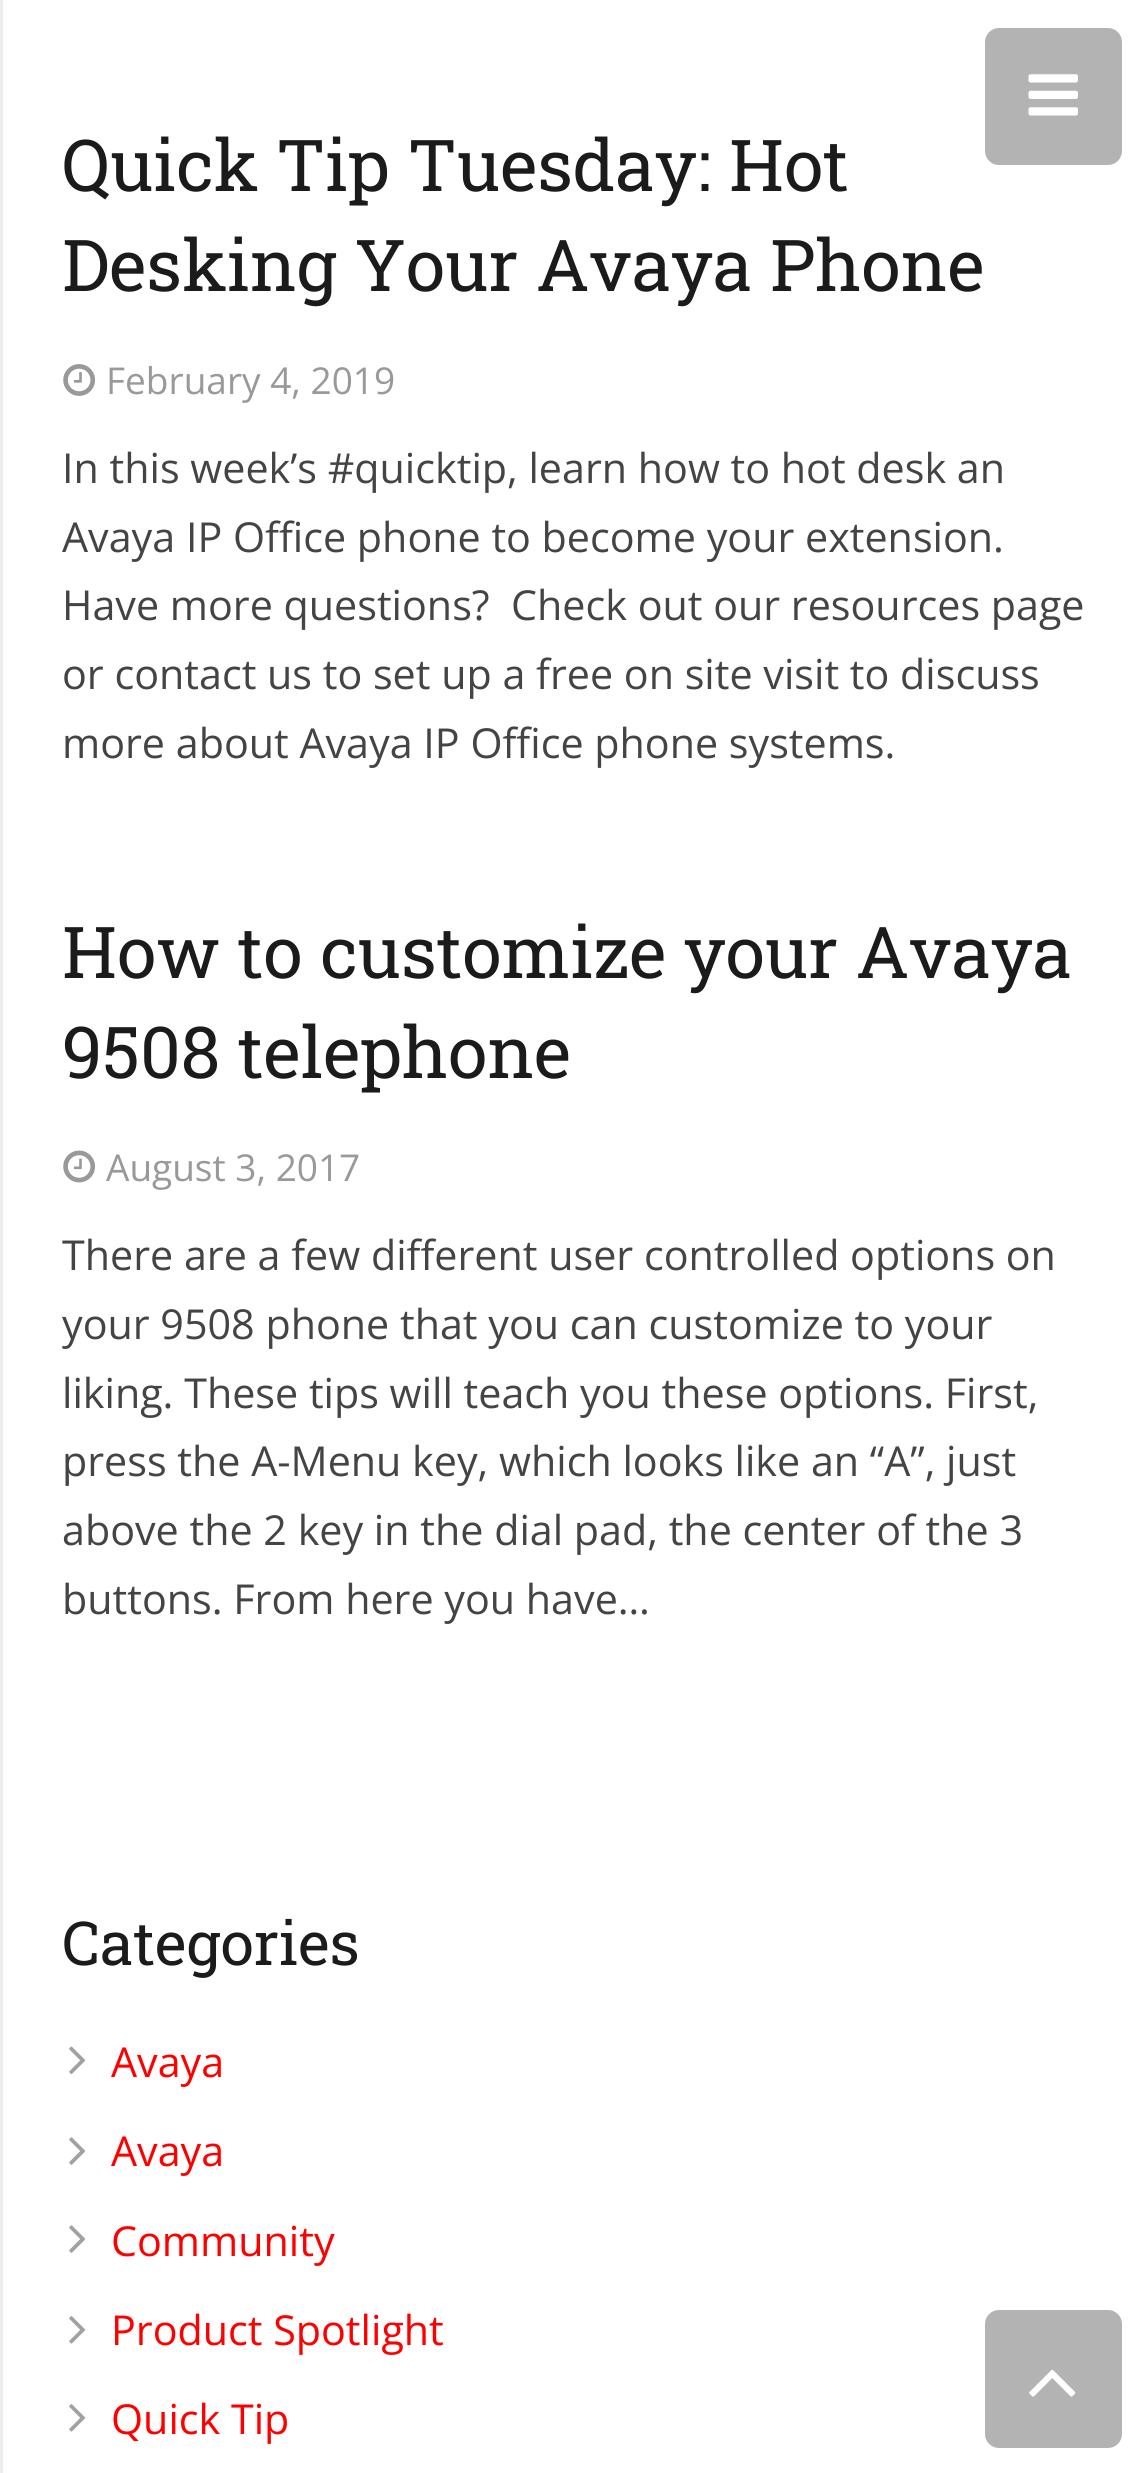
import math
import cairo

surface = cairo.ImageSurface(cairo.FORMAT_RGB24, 1147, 2473)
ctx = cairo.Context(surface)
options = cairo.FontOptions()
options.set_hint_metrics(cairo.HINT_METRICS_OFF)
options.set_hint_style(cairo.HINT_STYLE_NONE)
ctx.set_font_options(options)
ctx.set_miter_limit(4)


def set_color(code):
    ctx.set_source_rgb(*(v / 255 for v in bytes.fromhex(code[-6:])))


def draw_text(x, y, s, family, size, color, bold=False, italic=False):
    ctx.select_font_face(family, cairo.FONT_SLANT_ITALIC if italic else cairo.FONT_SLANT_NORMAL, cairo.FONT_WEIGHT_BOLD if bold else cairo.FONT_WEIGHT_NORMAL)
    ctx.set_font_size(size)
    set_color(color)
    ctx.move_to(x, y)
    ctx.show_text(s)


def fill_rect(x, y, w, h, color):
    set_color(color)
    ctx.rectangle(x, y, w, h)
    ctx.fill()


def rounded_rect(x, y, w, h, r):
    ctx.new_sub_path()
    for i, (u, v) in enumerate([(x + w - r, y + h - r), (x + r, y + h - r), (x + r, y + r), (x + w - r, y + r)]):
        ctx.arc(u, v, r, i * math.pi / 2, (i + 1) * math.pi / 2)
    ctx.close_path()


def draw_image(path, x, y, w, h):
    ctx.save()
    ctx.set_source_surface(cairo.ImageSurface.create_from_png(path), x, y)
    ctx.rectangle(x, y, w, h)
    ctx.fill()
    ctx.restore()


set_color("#ffffff")
ctx.paint()
set_color("#b3b3b3")
rounded_rect(985, 28, 137, 137, 14)
ctx.fill()
draw_image("assets/img1.png", 1028, 74, 50, 42)
fill_rect(0, 0, 3, 2473, "#ebebeb")
draw_text(62, 191, "Quick Tip Tuesday: Hot", "Roboto Slab", 71.5, "#1b1b1b")
draw_text(62, 291, "Desking Your Avaya Phone", "Roboto Slab", 71.5, "#1b1b1b")
draw_image("assets/img2.png", 63, 364, 32, 32)
draw_text(106, 394, "February 4, 2019", "Open Sans", 37, "#999999")
draw_text(62, 483, "In this week’s #quicktip, learn how to hot desk an", "Open Sans", 41.25, "#444444")
draw_text(62, 552, "Avaya IP Office phone to become your extension.", "Open Sans", 41.25, "#444444")
draw_text(62, 620, "Have more questions?  Check out our resources page", "Open Sans", 41.25, "#444444")
draw_text(62, 689, "or contact us to set up a free on site visit to discuss", "Open Sans", 41.25, "#444444")
draw_text(62, 758, "more about Avaya IP Office phone systems.", "Open Sans", 41.25, "#444444")
draw_text(62, 978, "How to customize your Avaya", "Roboto Slab", 71.5, "#1b1b1b")
draw_text(62, 1078, "9508 telephone", "Roboto Slab", 71.5, "#1b1b1b")
draw_image("assets/img3.png", 63, 1150, 33, 33)
draw_text(106, 1181, "August 3, 2017", "Open Sans", 37, "#999999")
draw_text(62, 1270, "There are a few different user controlled options on", "Open Sans", 41.25, "#444444")
draw_text(62, 1339, "your 9508 phone that you can customize to your", "Open Sans", 41.25, "#444444")
draw_text(62, 1408, "liking. These tips will teach you these options. First,", "Open Sans", 41.25, "#444444")
draw_text(62, 1476, "press the A-Menu key, which looks like an “A”, just", "Open Sans", 41.25, "#444444")
draw_text(62, 1545, "above the 2 key in the dial pad, the center of the 3", "Open Sans", 41.25, "#444444")
draw_text(62, 1614, "buttons. From here you have…", "Open Sans", 41.25, "#444444")
draw_text(62, 1965, "Categories", "Roboto Slab", 60.5, "#1b1b1b")
draw_image("assets/img4.png", 69, 2046, 17, 28)
draw_text(111, 2077, "Avaya", "Open Sans", 41.25, "#ff0000")
draw_image("assets/img5.png", 69, 2137, 17, 28)
draw_text(111, 2166, "Avaya", "Open Sans", 41.25, "#ff0000")
draw_image("assets/img5.png", 69, 2225, 17, 28)
draw_text(111, 2256, "Community", "Open Sans", 41.25, "#ff0000")
draw_image("assets/img6.png", 69, 2316, 17, 28)
draw_text(111, 2345, "Product Spotlight", "Open Sans", 41.25, "#ff0000")
draw_image("assets/img6.png", 69, 2404, 17, 28)
draw_text(111, 2434, "Quick Tip", "Open Sans", 41.25, "#ff0000")
set_color("#b3b3b3")
rounded_rect(985, 2310, 137, 138, 14)
ctx.fill()
draw_image("assets/img7.png", 1029, 2369, 47, 28)
surface.write_to_png("output.png")
